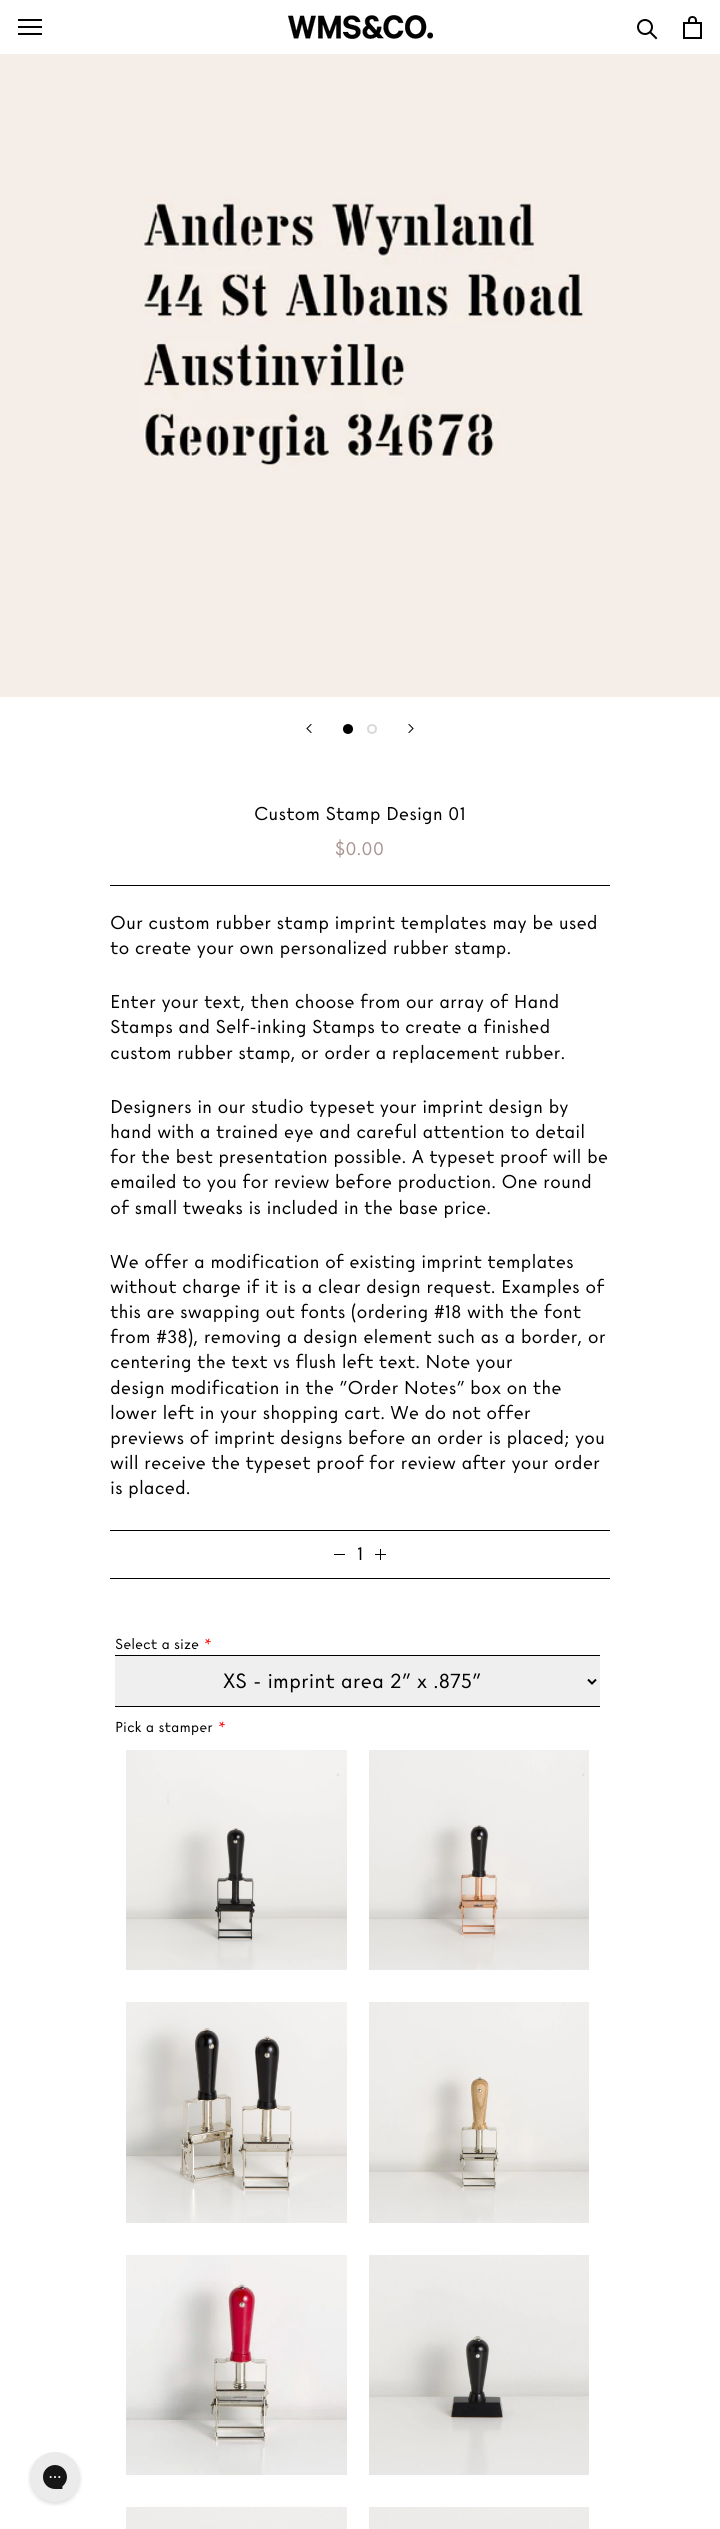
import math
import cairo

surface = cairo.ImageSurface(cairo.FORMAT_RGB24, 720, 2529)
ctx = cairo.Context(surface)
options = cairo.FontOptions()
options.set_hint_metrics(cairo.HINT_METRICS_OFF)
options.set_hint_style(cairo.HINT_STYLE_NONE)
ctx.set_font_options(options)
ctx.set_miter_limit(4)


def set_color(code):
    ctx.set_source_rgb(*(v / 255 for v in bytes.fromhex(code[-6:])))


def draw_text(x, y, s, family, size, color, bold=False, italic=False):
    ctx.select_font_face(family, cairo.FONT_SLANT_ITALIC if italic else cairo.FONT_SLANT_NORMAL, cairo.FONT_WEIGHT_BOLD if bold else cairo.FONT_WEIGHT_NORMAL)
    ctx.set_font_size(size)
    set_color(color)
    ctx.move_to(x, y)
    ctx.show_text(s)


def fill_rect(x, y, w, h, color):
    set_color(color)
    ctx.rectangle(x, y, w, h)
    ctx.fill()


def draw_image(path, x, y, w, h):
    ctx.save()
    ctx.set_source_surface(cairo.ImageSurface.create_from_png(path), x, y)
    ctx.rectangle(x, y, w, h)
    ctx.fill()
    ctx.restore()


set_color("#ffffff")
ctx.paint()
draw_image("assets/img1.png", 18, 19, 24, 16)
draw_image("assets/img2.png", 288, 15, 145, 24)
ctx.new_path()
ctx.move_to(656, 38)
ctx.line_to(650.5, 32.5)
set_color("#000000")
ctx.set_line_cap(cairo.LINE_CAP_SQUARE)
ctx.stroke()
ctx.arc(645, 27, 7, 0, 2 * math.pi)
ctx.set_line_cap(cairo.LINE_CAP_BUTT)
ctx.stroke()
draw_image("assets/img3.png", 683, 16, 19, 23)
draw_image("assets/img4.png", 0, 54, 720, 643)
ctx.new_path()
ctx.move_to(311, 732.5)
ctx.line_to(307, 728.5)
ctx.line_to(311, 724.5)
ctx.set_line_width(1)
ctx.set_line_cap(cairo.LINE_CAP_SQUARE)
ctx.stroke()
ctx.arc(348, 729, 4, 0, 2 * math.pi)
ctx.fill_preserve()
ctx.set_line_width(2)
ctx.set_line_cap(cairo.LINE_CAP_BUTT)
ctx.stroke()
ctx.arc(372, 729, 4, 0, 2 * math.pi)
set_color("#d9d9d9")
ctx.stroke()
ctx.new_path()
ctx.move_to(409, 732.5)
ctx.line_to(413, 728.5)
ctx.line_to(409, 724.5)
set_color("#000000")
ctx.set_line_width(1)
ctx.set_line_cap(cairo.LINE_CAP_SQUARE)
ctx.stroke()
draw_text(254, 820, "Custom Stamp Design 01", "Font", 18, "#000000")
draw_text(335, 855, "$0.00", "Font", 18, "#a69491")
fill_rect(110, 885, 500, 1, "#000000")
draw_text(110, 929, "Our custom rubber stamp imprint templates may be used", "Font", 18, "#000000")
draw_text(110, 954, "to create your own personalized rubber stamp.", "Font", 18, "#000000")
draw_text(110, 1008, "Enter your text, then choose from our array of Hand", "Font", 18, "#000000")
draw_text(110, 1033, "Stamps and Self-inking Stamps to create a finished", "Font", 18, "#000000")
draw_text(110, 1059, "custom rubber stamp, or order a replacement rubber.", "Font", 18, "#000000")
draw_text(110, 1113, "Designers in our studio typeset your imprint design by", "Font", 18, "#000000")
draw_text(110, 1138, "hand with a trained eye and careful attention to detail", "Font", 18, "#000000")
draw_text(110, 1163, "for the best presentation possible. A typeset proof will be", "Font", 18, "#000000")
draw_text(110, 1188, "emailed to you for review before production. One round", "Font", 18, "#000000")
draw_text(110, 1214, "of small tweaks is included in the base price.", "Font", 18, "#000000")
draw_text(110, 1268, "We offer a modification of existing imprint templates", "Font", 18, "#000000")
draw_text(110, 1293, "without charge if it is a clear design request. Examples of", "Font", 18, "#000000")
draw_text(110, 1318, "this are swapping out fonts (ordering #18 with the font", "Font", 18, "#000000")
draw_text(110, 1343, "from #38), removing a design element such as a border, or", "Font", 18, "#000000")
draw_text(110, 1368, "centering the text vs flush left text. Note your", "Font", 18, "#000000")
draw_text(110, 1394, "design modification in the \"Order Notes\" box on the", "Font", 18, "#000000")
draw_text(110, 1419, "lower left in your shopping cart. We do not offer", "Font", 18, "#000000")
draw_text(110, 1444, "previews of imprint designs before an order is placed; you", "Font", 18, "#000000")
draw_text(110, 1469, "will receive the typeset proof for review after your order", "Font", 18, "#000000")
draw_text(110, 1494, "is placed.", "Font", 18, "#000000")
fill_rect(110, 1530, 500, 1, "#000000")
fill_rect(110, 1578, 500, 1, "#000000")
fill_rect(334, 1554, 11, 1, "#000000")
draw_text(357, 1560, "1", "Font", 18, "#000000")
fill_rect(380, 1549, 1, 11, "#000000")
fill_rect(375, 1554, 11, 1, "#000000")
draw_text(115, 1649, "Select a size", "Font", 14, "#000000")
draw_text(204, 1649, "*", "Font", 14, "#ff0000")
fill_rect(115, 1656, 485, 50, "#efefef")
fill_rect(115, 1655, 485, 1, "#000000")
fill_rect(115, 1706, 485, 1, "#000000")
ctx.new_path()
ctx.move_to(588, 1679.5)
ctx.line_to(592, 1683.5)
ctx.line_to(596, 1679.5)
ctx.set_line_width(2)
ctx.set_line_cap(cairo.LINE_CAP_BUTT)
ctx.stroke()
draw_text(223, 1688, "XS - imprint area 2\" x .875\"", "Font", 20, "#000000")
draw_text(115, 1732, "Pick a stamper", "Font", 14, "#000000")
draw_text(218, 1732, "*", "Font", 14, "#ff0000")
draw_image("assets/img5.png", 126, 1750, 221, 220)
draw_image("assets/img6.png", 369, 1750, 220, 220)
draw_image("assets/img7.png", 126, 2002, 221, 221)
draw_image("assets/img8.png", 369, 2002, 220, 221)
draw_image("assets/img9.png", 126, 2255, 221, 220)
draw_image("assets/img10.png", 369, 2255, 220, 220)
draw_image("assets/img11.png", 126, 2507, 221, 22)
draw_image("assets/img12.png", 369, 2507, 220, 22)
draw_image("assets/img13.png", 28, 2452, 54, 54)
surface.write_to_png("output.png")
